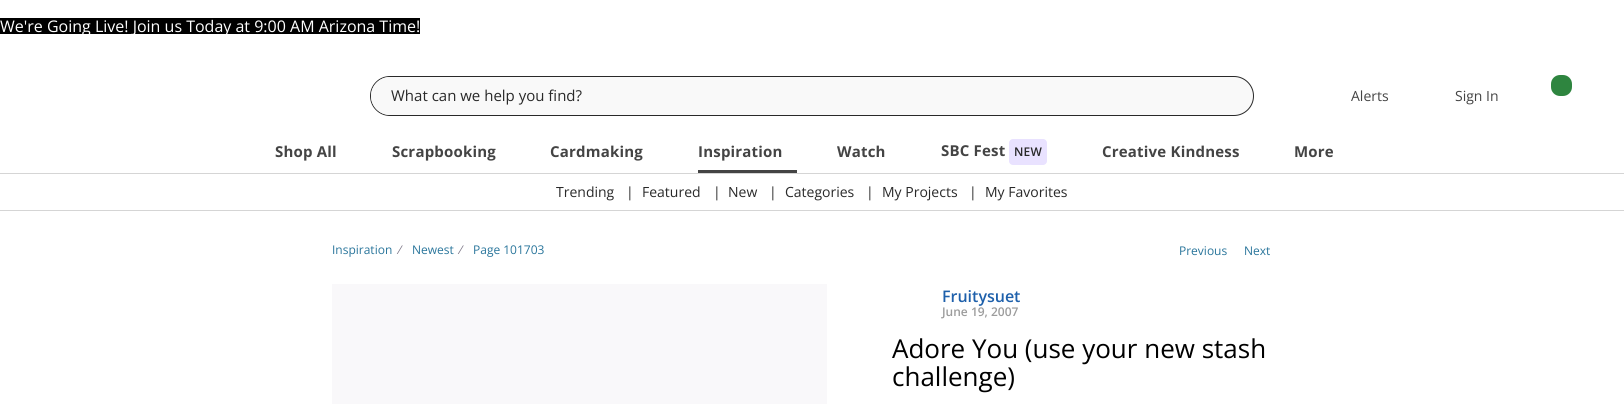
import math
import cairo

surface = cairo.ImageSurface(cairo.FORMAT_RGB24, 1624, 404)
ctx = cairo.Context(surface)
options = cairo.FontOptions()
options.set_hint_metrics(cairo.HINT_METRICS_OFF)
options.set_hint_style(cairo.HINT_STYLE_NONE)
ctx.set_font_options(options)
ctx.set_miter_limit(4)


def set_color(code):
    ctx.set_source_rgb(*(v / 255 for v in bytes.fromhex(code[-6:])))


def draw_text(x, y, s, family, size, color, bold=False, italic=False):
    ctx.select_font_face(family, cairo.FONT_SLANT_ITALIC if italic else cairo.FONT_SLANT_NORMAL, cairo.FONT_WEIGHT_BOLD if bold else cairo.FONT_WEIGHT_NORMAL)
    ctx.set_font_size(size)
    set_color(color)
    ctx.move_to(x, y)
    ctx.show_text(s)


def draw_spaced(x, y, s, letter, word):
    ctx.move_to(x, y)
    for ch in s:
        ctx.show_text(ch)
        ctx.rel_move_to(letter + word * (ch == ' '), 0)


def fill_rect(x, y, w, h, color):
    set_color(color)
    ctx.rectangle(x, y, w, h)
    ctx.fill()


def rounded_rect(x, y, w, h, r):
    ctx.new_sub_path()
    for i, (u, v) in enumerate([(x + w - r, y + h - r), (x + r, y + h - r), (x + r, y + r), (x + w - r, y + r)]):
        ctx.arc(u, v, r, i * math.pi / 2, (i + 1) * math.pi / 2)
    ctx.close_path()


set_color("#ffffff")
ctx.paint()
fill_rect(0, 18, 420, 16, "#000000")
draw_text(0, 32, "We're Going Live! Join us Today at 9:00 AM Arizona Time!", "Open Sans", 16, "#ffffff")
set_color("#f9f9f9")
rounded_rect(370.5, 76.5, 883, 39, 19.5)
ctx.fill_preserve()
set_color("#292929")
ctx.set_line_width(1)
ctx.stroke()
set_color("#f9f9f9")
ctx.new_path()
ctx.move_to(390, 77)
ctx.line_to(1220, 77)
ctx.line_to(1220, 115)
ctx.line_to(390, 115)
ctx.curve_to(379.5, 115, 371, 106.5, 371, 96)
ctx.curve_to(371, 85.5, 379.5, 77, 390, 77)
ctx.close_path()
ctx.fill()
draw_text(391, 101, "What can we help you find?", "Open Sans", 15, "#292929")
draw_text(1351, 101, "Alerts", "Open Sans", 14, "#444444")
draw_text(1455, 101, "Sign In", "Open Sans", 14, "#444444")
set_color("#2e853f")
rounded_rect(1550, 74, 23, 23, 10)
ctx.fill_preserve()
set_color("#ffffff")
ctx.set_line_width(2)
ctx.stroke()
fill_rect(0, 173, 1624, 1, "#d5d5d5")
ctx.select_font_face("Open Sans", cairo.FONT_SLANT_NORMAL, cairo.FONT_WEIGHT_BOLD)
ctx.set_font_size(15)
set_color("#444444")
draw_spaced(275, 157, "Shop All", 0.2, 0)
draw_spaced(392, 157, "Scrapbooking", 0.2, 0)
draw_spaced(550, 157, "Cardmaking", 0.2, 0)
fill_rect(698, 170, 99, 3, "#444444")
draw_spaced(698, 157, "Inspiration", 0.2, 0)
draw_spaced(837, 157, "Watch", 0.2, 0)
draw_spaced(941, 156, "SBC Fest", 0.2, 0)
set_color("#e9e2ff")
rounded_rect(1009, 139, 38, 26, 4)
ctx.fill()
ctx.select_font_face("Open Sans SemiBold")
ctx.set_font_size(12)
set_color("#292929")
draw_spaced(1014, 156, "NEW", 0.2, 0)
ctx.select_font_face("Open Sans", cairo.FONT_SLANT_NORMAL, cairo.FONT_WEIGHT_BOLD)
ctx.set_font_size(15)
set_color("#444444")
draw_spaced(1102, 157, "Creative Kindness", 0.2, 0)
draw_spaced(1294, 157, "More", 0.2, 0)
fill_rect(0, 210, 1624, 1, "#d5d5d5")
draw_text(556, 197, "Trending", "Open Sans", 14, "#292929")
draw_text(626, 197, "|", "Open Sans", 14, "#292929")
draw_text(642, 197, "Featured", "Open Sans", 14, "#292929")
draw_text(713, 197, "|", "Open Sans", 14, "#292929")
draw_text(728, 197, "New", "Open Sans", 14, "#292929")
draw_text(769, 197, "|", "Open Sans", 14, "#292929")
draw_text(785, 197, "Categories", "Open Sans", 14, "#292929")
draw_text(866, 197, "|", "Open Sans", 14, "#292929")
draw_text(882, 197, "My Projects", "Open Sans", 14, "#292929")
draw_text(969, 197, "|", "Open Sans", 14, "#292929")
draw_text(985, 197, "My Favorites", "Open Sans", 14, "#292929")
draw_text(332, 254, "Inspiration", "Open Sans", 12, "#29759b")
draw_text(399, 254, "⁄", "Open Sans", 12, "#767081")
draw_text(412, 254, "Newest", "Open Sans", 12, "#29759b")
draw_text(460, 254, "⁄", "Open Sans", 12, "#767081")
draw_text(473, 254, "Page 101703", "Open Sans", 12, "#29759b")
draw_text(1179, 255, "Previous", "Open Sans", 12, "#29759b")
draw_text(1244, 255, "Next", "Open Sans", 12, "#29759b")
fill_rect(332, 284, 495, 120, "#f9f8fa")
draw_text(942, 302, "Fruitysuet", "Open Sans SemiBold", 16, "#1e60ab")
draw_text(942, 316, "June 19, 2007", "Open Sans SemiBold", 12, "#9c9c9c")
draw_text(892, 358, "Adore You (use your new stash", "Open Sans", 26, "#000000")
draw_text(892, 386, "challenge)", "Open Sans", 26, "#000000")
surface.write_to_png("output.png")
